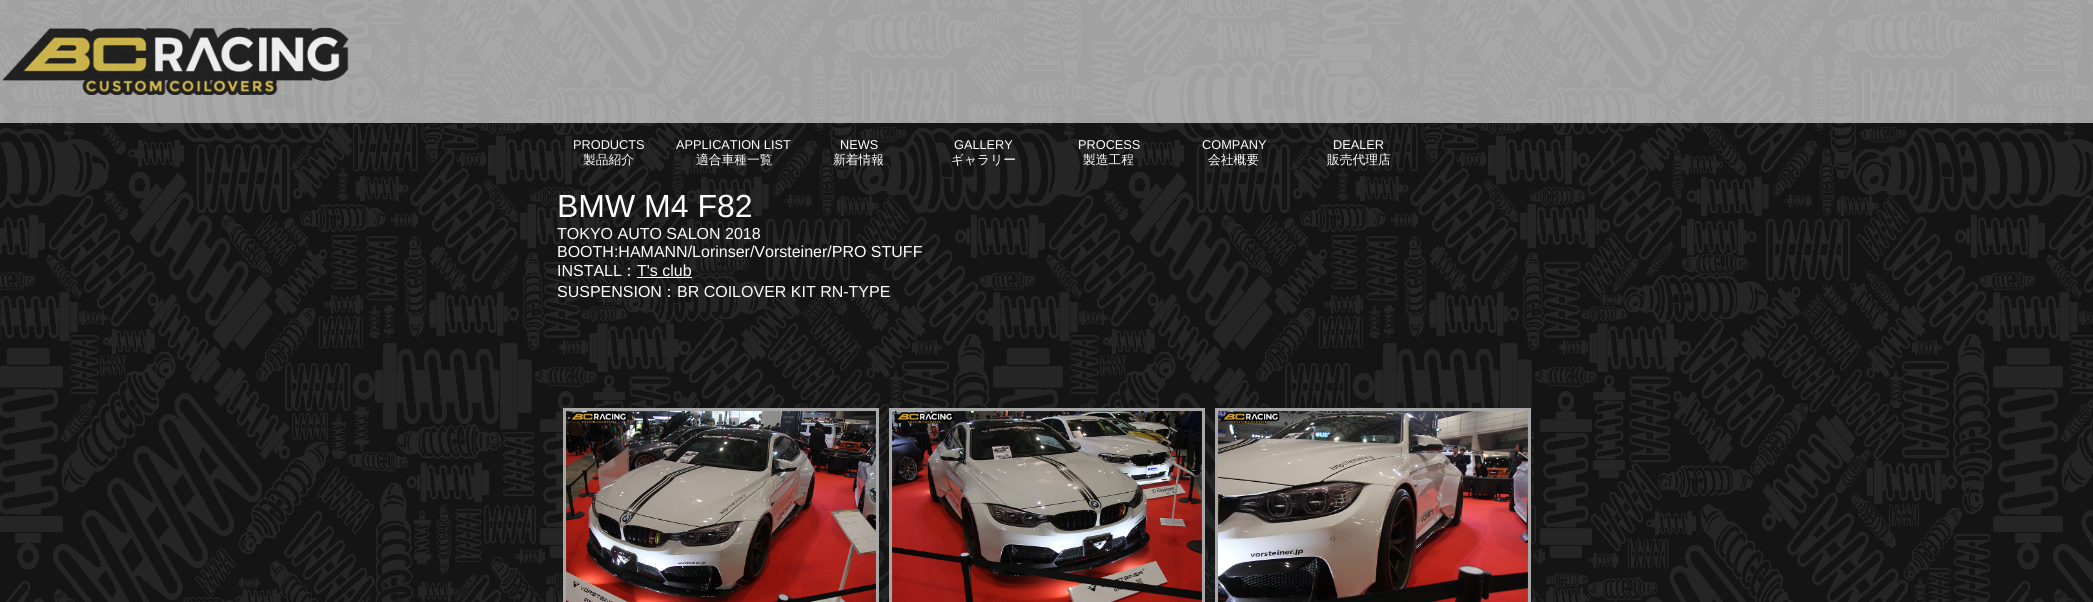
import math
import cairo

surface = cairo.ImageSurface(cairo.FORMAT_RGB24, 2093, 602)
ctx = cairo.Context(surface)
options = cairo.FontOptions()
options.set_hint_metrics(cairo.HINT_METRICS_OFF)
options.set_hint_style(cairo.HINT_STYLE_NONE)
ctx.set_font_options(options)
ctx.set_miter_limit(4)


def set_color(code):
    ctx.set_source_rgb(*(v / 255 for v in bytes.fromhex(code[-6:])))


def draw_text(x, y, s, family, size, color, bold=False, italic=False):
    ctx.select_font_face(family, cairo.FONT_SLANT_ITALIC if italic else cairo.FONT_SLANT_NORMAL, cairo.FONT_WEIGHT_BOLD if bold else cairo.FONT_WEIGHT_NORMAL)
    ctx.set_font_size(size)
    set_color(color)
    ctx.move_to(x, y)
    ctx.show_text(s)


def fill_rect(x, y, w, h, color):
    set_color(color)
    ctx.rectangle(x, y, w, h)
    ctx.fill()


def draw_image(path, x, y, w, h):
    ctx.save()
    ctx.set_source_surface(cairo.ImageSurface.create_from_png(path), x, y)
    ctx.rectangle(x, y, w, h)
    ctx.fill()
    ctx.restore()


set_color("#ffffff")
ctx.paint()
draw_image("assets/img1.png", 0, 0, 2093, 602)
ctx.set_source_rgba(1, 1, 1, 0.6)
ctx.rectangle(0, 0, 2093, 123)
ctx.fill()
draw_image("assets/img2.png", 2, 27, 347, 69)
draw_text(573, 149, "PRODUCTS", "Liberation Sans", 12.75, "#ffffff")
draw_text(583, 164, "製品紹介", "WenQuanYi Zen Hei Medium", 12.75, "#ffffff")
draw_text(676, 149, "APPLICATION LIST", "Liberation Sans", 12.75, "#ffffff")
draw_text(696, 164, "適合車種一覧", "WenQuanYi Zen Hei Medium", 12.75, "#ffffff")
draw_text(840, 149, "NEWS", "Liberation Sans", 12.75, "#ffffff")
draw_text(833, 164, "新着情報", "WenQuanYi Zen Hei Medium", 12.75, "#ffffff")
draw_text(954, 149, "GALLERY", "Liberation Sans", 12.75, "#ffffff")
draw_text(951, 164, "ギャラリー", "WenQuanYi Zen Hei Medium", 12.75, "#ffffff")
draw_text(1078, 149, "PROCESS", "Liberation Sans", 12.75, "#ffffff")
draw_text(1083, 164, "製造工程", "WenQuanYi Zen Hei Medium", 12.75, "#ffffff")
draw_text(1202, 149, "COMPANY", "Liberation Sans", 12.75, "#ffffff")
draw_text(1208, 164, "会社概要", "WenQuanYi Zen Hei Medium", 12.75, "#ffffff")
draw_text(1333, 149, "DEALER", "Liberation Sans", 12.75, "#ffffff")
draw_text(1327, 164, "販売代理店", "WenQuanYi Zen Hei Medium", 12.75, "#ffffff")
draw_text(557, 217, "BMW M4 F82", "Liberation Sans", 32, "#ffffff")
draw_text(557, 239, "TOKYO AUTO SALON 2018", "Liberation Sans", 16, "#ffffff")
draw_text(557, 257, "BOOTH:HAMANN/Lorinser/Vorsteiner/PRO STUFF", "Liberation Sans", 16, "#ffffff")
draw_text(557, 276, "INSTALL", "Liberation Sans", 16, "#ffffff")
draw_text(621, 276, "：", "WenQuanYi Zen Hei Medium", 16, "#ffffff")
draw_text(637, 276, "T's club", "Liberation Sans", 16, "#ffffff")
fill_rect(637, 277, 55, 1, "#ffffff")
draw_text(557, 297, "SUSPENSION", "Liberation Sans", 16, "#ffffff")
draw_text(661, 297, "：", "WenQuanYi Zen Hei Medium", 16, "#ffffff")
draw_text(677, 297, "BR COILOVER KIT RN-TYPE", "Liberation Sans", 16, "#ffffff")
ctx.rectangle(564.5, 409.5, 313, 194)
set_color("#a7a7a7")
ctx.set_line_width(3)
ctx.stroke()
draw_image("assets/img3.png", 566, 411, 310, 191)
ctx.rectangle(890.5, 409.5, 313, 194)
ctx.stroke()
draw_image("assets/img4.png", 892, 411, 310, 191)
ctx.rectangle(1216.5, 409.5, 313, 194)
ctx.stroke()
draw_image("assets/img5.png", 1218, 411, 310, 191)
surface.write_to_png("output.png")
